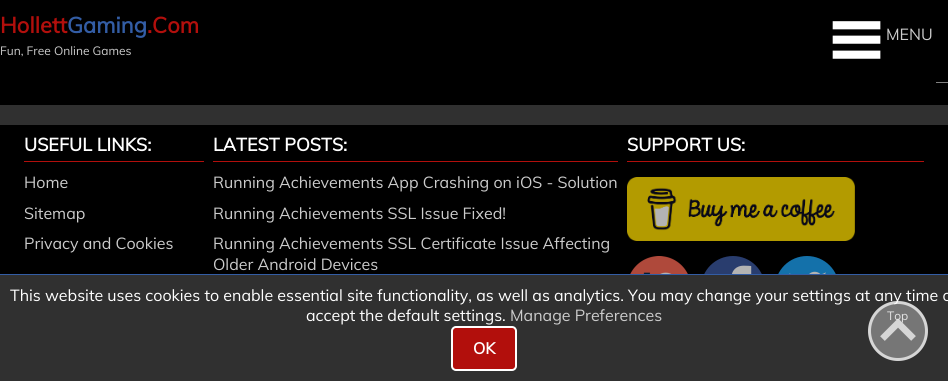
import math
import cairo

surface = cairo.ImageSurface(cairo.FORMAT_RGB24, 948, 381)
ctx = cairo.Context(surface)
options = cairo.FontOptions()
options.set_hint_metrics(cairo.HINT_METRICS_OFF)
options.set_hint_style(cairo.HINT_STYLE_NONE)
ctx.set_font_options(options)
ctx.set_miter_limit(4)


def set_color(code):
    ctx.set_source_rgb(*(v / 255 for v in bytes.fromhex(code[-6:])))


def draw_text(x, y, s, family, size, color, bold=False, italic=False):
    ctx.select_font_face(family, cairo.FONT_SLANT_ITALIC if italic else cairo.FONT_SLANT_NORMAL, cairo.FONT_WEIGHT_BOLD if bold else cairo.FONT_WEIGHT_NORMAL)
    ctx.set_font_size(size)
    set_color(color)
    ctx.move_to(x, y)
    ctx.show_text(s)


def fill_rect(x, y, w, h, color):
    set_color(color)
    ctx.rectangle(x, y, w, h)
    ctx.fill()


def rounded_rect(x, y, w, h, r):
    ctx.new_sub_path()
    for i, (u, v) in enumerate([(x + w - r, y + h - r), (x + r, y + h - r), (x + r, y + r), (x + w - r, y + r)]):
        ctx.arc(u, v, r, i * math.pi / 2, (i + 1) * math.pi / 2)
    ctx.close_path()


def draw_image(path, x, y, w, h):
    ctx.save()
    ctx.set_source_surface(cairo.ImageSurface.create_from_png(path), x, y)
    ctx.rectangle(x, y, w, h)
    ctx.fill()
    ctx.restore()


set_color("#303030")
ctx.paint()
fill_rect(0, 0, 948, 105, "#000000")
draw_text(0, 33, "Hollett", "Muli", 22, "#b20f0c", bold=True)
draw_text(67, 33, "Gaming", "Muli", 22, "#335da5", bold=True)
draw_text(147, 33, ".Com", "Muli", 22, "#b20f0c", bold=True)
draw_text(0, 55, "Fun, Free Online Games", "Muli", 12, "#cccccc")
draw_image("assets/img1.png", 832, 21, 49, 38)
draw_text(886, 40, "MENU", "Muli", 16, "#cccccc")
fill_rect(936, 82, 12, 1, "#808080")
fill_rect(0, 125, 948, 149, "#000000")
fill_rect(24, 161, 180, 1, "#b20f0c")
draw_text(24, 151, "USEFUL LINKS:", "Muli", 18, "#ffffff", bold=True)
draw_text(24, 188, "Home", "Muli", 16, "#cccccc")
draw_text(24, 219, "Sitemap", "Muli", 16, "#cccccc")
draw_text(24, 249, "Privacy and Cookies", "Muli", 16, "#cccccc")
fill_rect(213, 161, 405, 1, "#b20f0c")
draw_text(213, 151, "LATEST POSTS:", "Muli", 18, "#ffffff", bold=True)
draw_text(213, 188, "Running Achievements App Crashing on iOS - Solution", "Muli", 16, "#cccccc")
draw_text(213, 219, "Running Achievements SSL Issue Fixed!", "Muli", 16, "#cccccc")
draw_text(213, 249, "Running Achievements SSL Certificate Issue Affecting", "Muli", 16, "#cccccc")
draw_text(213, 270, "Older Android Devices", "Muli", 16, "#cccccc")
fill_rect(627, 161, 297, 1, "#b20f0c")
draw_text(627, 151, "SUPPORT US:", "Muli", 18, "#ffffff", bold=True)
draw_image("assets/img2.png", 627, 177, 228, 64)
draw_image("assets/img3.png", 630, 256, 58, 18)
draw_image("assets/img4.png", 704, 256, 58, 18)
draw_image("assets/img5.png", 778, 256, 58, 18)
fill_rect(0, 274, 948, 1, "#335da5")
draw_text(10, 301, "This website uses cookies to enable essential site functionality, as well as analytics. You may change your settings at any time o", "Muli", 16, "#ffffff")
draw_text(306, 321, "accept the default settings.", "Muli", 16, "#ffffff")
draw_text(510, 321, "Manage Preferences", "Muli", 16, "#cccccc")
set_color("#b20f0c")
rounded_rect(452, 327, 64, 43, 4)
ctx.fill_preserve()
set_color("#ffffff")
ctx.stroke()
draw_text(473, 354, "OK", "Muli", 16, "#ffffff", bold=True)
draw_image("assets/img6.png", 868, 301, 60, 60)
draw_text(887, 320, "Top", "Muli", 12, "#e4e4e4")
surface.write_to_png("output.png")
